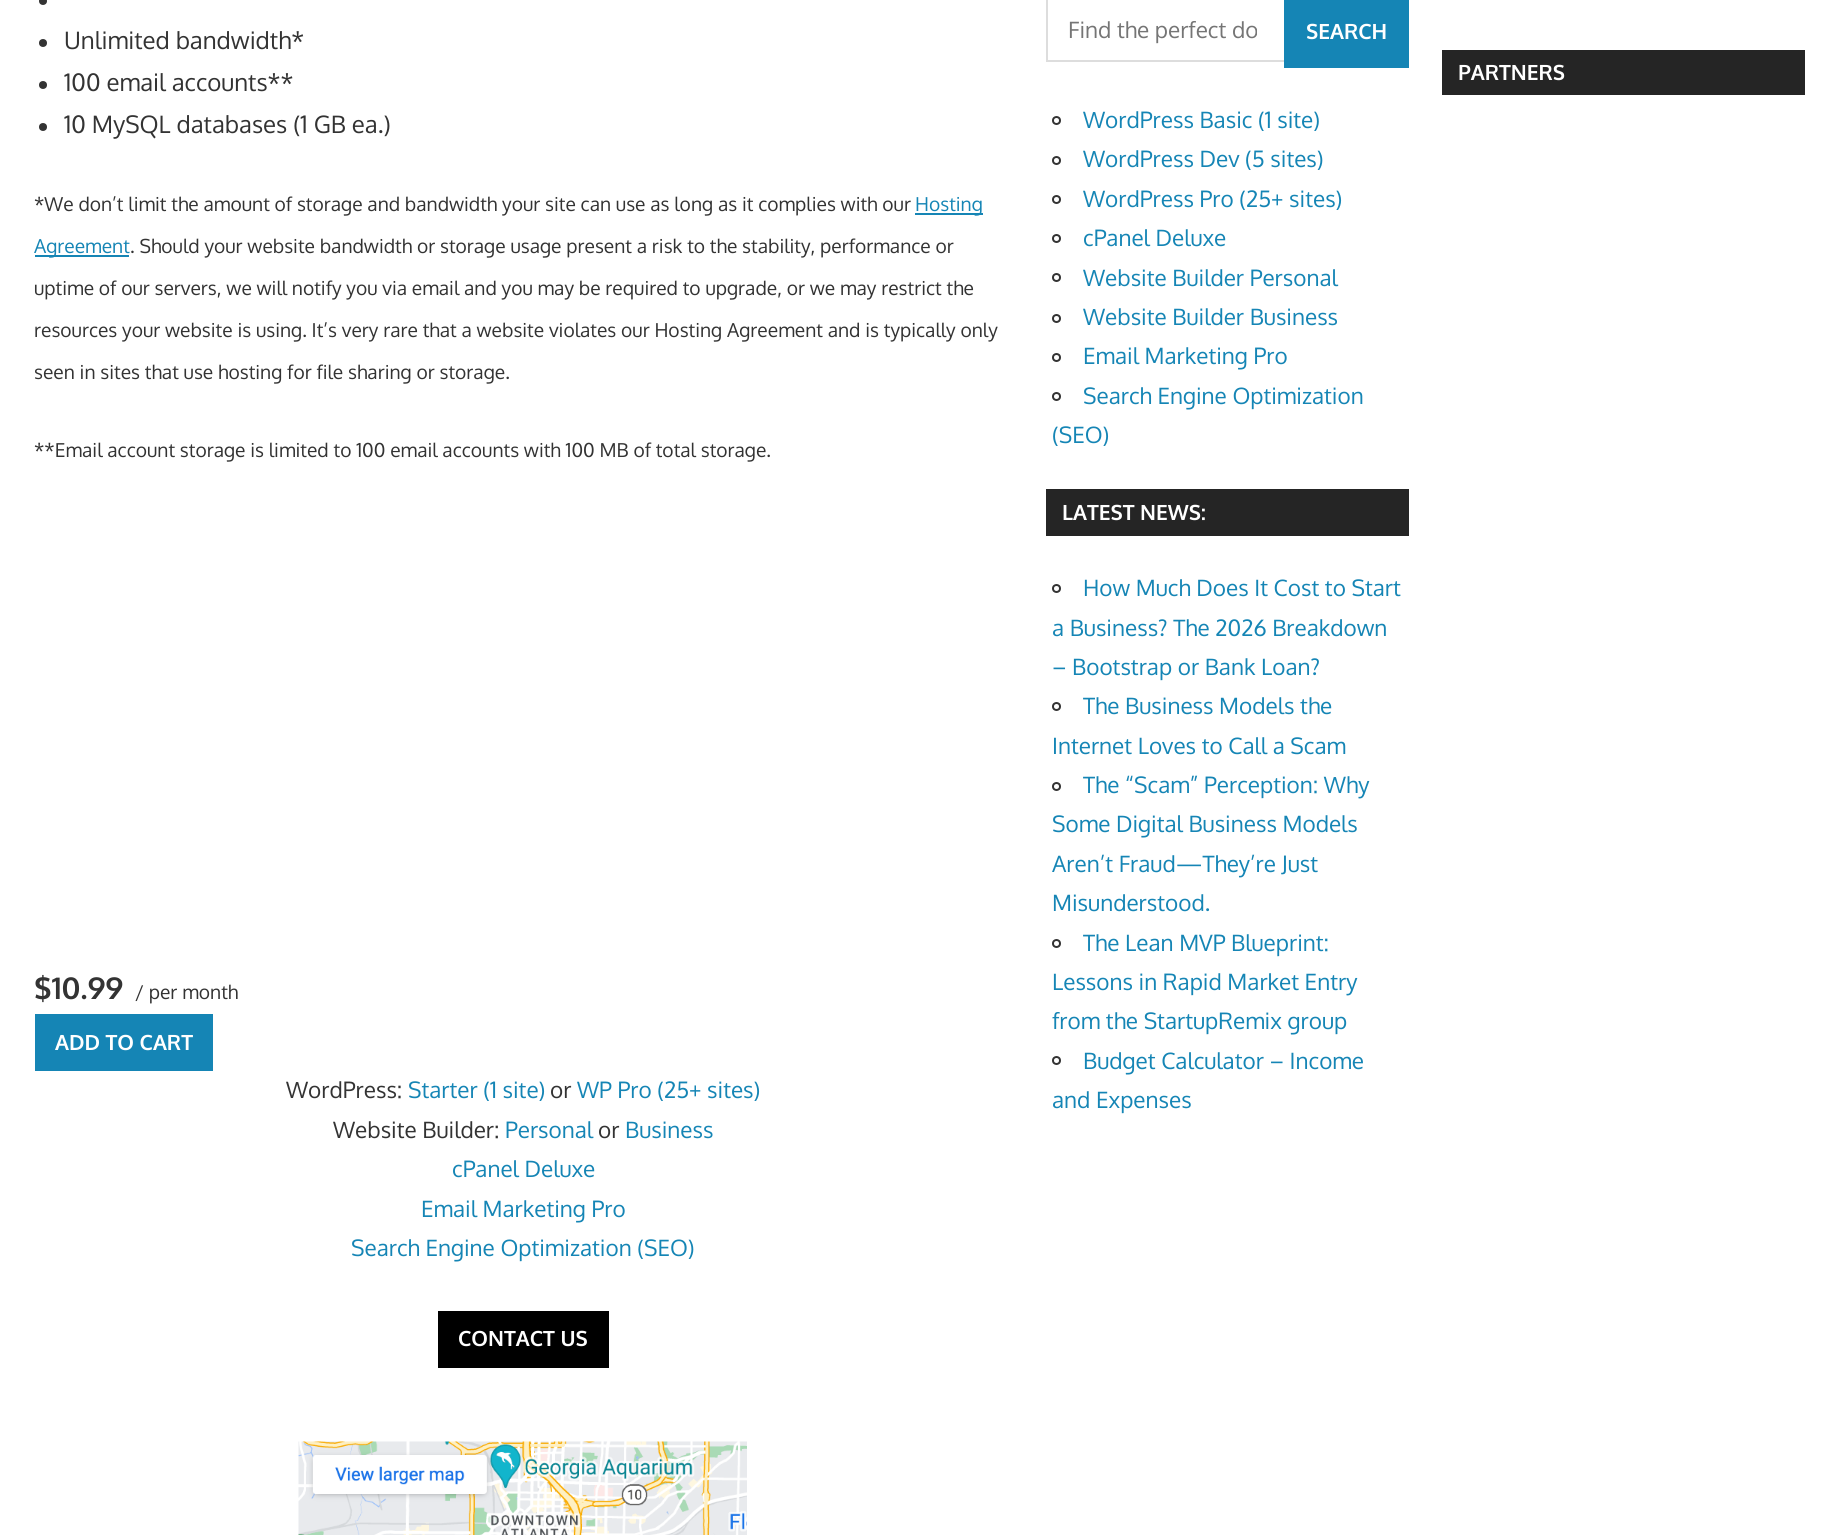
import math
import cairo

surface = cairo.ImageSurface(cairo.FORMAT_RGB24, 1841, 1535)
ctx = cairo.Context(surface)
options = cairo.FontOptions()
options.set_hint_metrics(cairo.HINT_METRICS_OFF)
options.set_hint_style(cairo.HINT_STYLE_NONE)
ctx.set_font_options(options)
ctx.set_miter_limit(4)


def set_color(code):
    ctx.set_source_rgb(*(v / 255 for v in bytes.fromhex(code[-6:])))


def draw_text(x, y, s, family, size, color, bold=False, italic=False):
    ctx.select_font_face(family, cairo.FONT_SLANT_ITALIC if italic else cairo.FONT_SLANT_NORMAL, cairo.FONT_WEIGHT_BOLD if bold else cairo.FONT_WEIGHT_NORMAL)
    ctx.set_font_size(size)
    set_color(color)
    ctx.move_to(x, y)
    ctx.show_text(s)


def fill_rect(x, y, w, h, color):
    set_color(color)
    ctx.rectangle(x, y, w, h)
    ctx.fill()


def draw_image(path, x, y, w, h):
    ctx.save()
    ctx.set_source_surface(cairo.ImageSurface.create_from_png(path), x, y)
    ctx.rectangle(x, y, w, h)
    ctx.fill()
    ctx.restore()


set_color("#ffffff")
ctx.paint()
set_color("#333333")
ctx.arc(43, 1, 4, 0, 2 * math.pi)
ctx.fill()
ctx.arc(43, 43, 4, 0, 2 * math.pi)
ctx.fill()
draw_text(64, 49, "Unlimited bandwidth*", "Oxygen", 24, "#333333")
ctx.new_path()
ctx.arc(43, 85, 4, 0, 2 * math.pi)
ctx.fill()
draw_text(64, 91, "100 email accounts**", "Oxygen", 24, "#333333")
ctx.new_path()
ctx.arc(43, 127, 4, 0, 2 * math.pi)
ctx.fill()
draw_text(64, 133, "10 MySQL databases (1 GB ea.)", "Oxygen", 24, "#333333")
draw_text(34, 211, "*We don’t limit the amount of storage and bandwidth your site can use as long as it complies with our", "Oxygen", 19.2, "#333333")
fill_rect(915, 213, 68, 2, "#1585b5")
draw_text(915, 211, "Hosting", "Oxygen", 19.2, "#1585b5")
fill_rect(35, 255, 94, 2, "#1585b5")
draw_text(34, 253, "Agreement", "Oxygen", 19.2, "#1585b5")
draw_text(130, 253, ". Should your website bandwidth or storage usage present a risk to the stability, performance or", "Oxygen", 19.2, "#333333")
draw_text(34, 295, "uptime of our servers, we will notify you via email and you may be required to upgrade, or we may restrict the", "Oxygen", 19.2, "#333333")
draw_text(34, 337, "resources your website is using. It’s very rare that a website violates our Hosting Agreement and is typically only", "Oxygen", 19.2, "#333333")
draw_text(34, 379, "seen in sites that use hosting for file sharing or storage.", "Oxygen", 19.2, "#333333")
draw_text(34, 457, "**Email account storage is limited to 100 email accounts with 100 MB of total storage.", "Oxygen", 19.2, "#333333")
draw_text(34, 999, "$10.99", "Oxygen", 30, "#333333", bold=True)
draw_text(135, 999, "/ per month", "Oxygen", 19.2, "#333333")
fill_rect(35, 1014, 178, 57, "#1585b5")
draw_text(55, 1050, "ADD TO CART", "Oxygen", 21, "#ffffff", bold=True)
draw_text(286, 1098, "WordPress:", "Oxygen", 22.5, "#333333")
draw_text(408, 1098, "Starter (1 site)", "Oxygen", 22.5, "#1585b5")
draw_text(550, 1098, "or", "Oxygen", 22.5, "#333333")
draw_text(577, 1098, "WP Pro (25+ sites)", "Oxygen", 22.5, "#1585b5")
draw_text(333, 1138, "Website Builder:", "Oxygen", 22.5, "#333333")
draw_text(505, 1138, "Personal", "Oxygen", 22.5, "#1585b5")
draw_text(598, 1138, "or", "Oxygen", 22.5, "#333333")
draw_text(625, 1138, "Business", "Oxygen", 22.5, "#1585b5")
draw_text(452, 1177, "cPanel Deluxe", "Oxygen", 22.5, "#1585b5")
draw_text(421, 1217, "Email Marketing Pro", "Oxygen", 22.5, "#1585b5")
draw_text(351, 1256, "Search Engine Optimization (SEO)", "Oxygen", 22.5, "#1585b5")
fill_rect(438, 1311, 171, 57, "#000000")
draw_text(458, 1346, "CONTACT US", "Oxygen", 21, "#ffffff", bold=True)
draw_image("assets/img1.png", 298, 1441, 449, 94)
ctx.rectangle(1047, -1, 238, 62)
set_color("#dddddd")
ctx.stroke()
ctx.save()
ctx.rectangle(1068, 15, 189, 29)
ctx.clip()
draw_text(1068, 38, "Find the perfect do", "Oxygen", 22.5, "#757575")
ctx.restore()
fill_rect(1284, 0, 125, 68, "#1585b5")
draw_text(1306, 39, "SEARCH", "Oxygen", 21, "#ffffff", bold=True)
ctx.new_path()
ctx.arc(1056.5, 120.5, 3.5, 0, 2 * math.pi)
set_color("#333333")
ctx.stroke()
draw_text(1083, 128, "WordPress Basic (1 site)", "Oxygen", 22.5, "#1585b5")
ctx.new_path()
ctx.arc(1056.5, 160.5, 3.5, 0, 2 * math.pi)
set_color("#333333")
ctx.stroke()
draw_text(1083, 167, "WordPress Dev (5 sites)", "Oxygen", 22.5, "#1585b5")
ctx.new_path()
ctx.arc(1056.5, 199.5, 3.5, 0, 2 * math.pi)
set_color("#333333")
ctx.stroke()
draw_text(1083, 207, "WordPress Pro (25+ sites)", "Oxygen", 22.5, "#1585b5")
ctx.new_path()
ctx.arc(1056.5, 238.5, 3.5, 0, 2 * math.pi)
set_color("#333333")
ctx.stroke()
draw_text(1083, 246, "cPanel Deluxe", "Oxygen", 22.5, "#1585b5")
ctx.new_path()
ctx.arc(1056.5, 277.5, 3.5, 0, 2 * math.pi)
set_color("#333333")
ctx.stroke()
draw_text(1083, 286, "Website Builder Personal", "Oxygen", 22.5, "#1585b5")
ctx.new_path()
ctx.arc(1056.5, 318.5, 3.5, 0, 2 * math.pi)
set_color("#333333")
ctx.stroke()
draw_text(1083, 325, "Website Builder Business", "Oxygen", 22.5, "#1585b5")
ctx.new_path()
ctx.arc(1056.5, 357.5, 3.5, 0, 2 * math.pi)
set_color("#333333")
ctx.stroke()
draw_text(1083, 364, "Email Marketing Pro", "Oxygen", 22.5, "#1585b5")
ctx.new_path()
ctx.arc(1056.5, 396.5, 3.5, 0, 2 * math.pi)
set_color("#333333")
ctx.stroke()
draw_text(1083, 404, "Search Engine Optimization", "Oxygen", 22.5, "#1585b5")
draw_text(1052, 443, "(SEO)", "Oxygen", 22.5, "#1585b5")
fill_rect(1046, 489, 363, 47, "#252525")
draw_text(1062, 520, "LATEST NEWS:", "Oxygen", 21, "#ffffff", bold=True)
ctx.new_path()
ctx.arc(1056.5, 588.5, 3.5, 0, 2 * math.pi)
set_color("#333333")
ctx.stroke()
draw_text(1083, 596, "How Much Does It Cost to Start", "Oxygen", 22.5, "#1585b5")
draw_text(1052, 636, "a Business? The 2026 Breakdown", "Oxygen", 22.5, "#1585b5")
draw_text(1052, 675, "– Bootstrap or Bank Loan?", "Oxygen", 22.5, "#1585b5")
ctx.new_path()
ctx.arc(1056.5, 706.5, 3.5, 0, 2 * math.pi)
set_color("#333333")
ctx.stroke()
draw_text(1083, 714, "The Business Models the", "Oxygen", 22.5, "#1585b5")
draw_text(1052, 754, "Internet Loves to Call a Scam", "Oxygen", 22.5, "#1585b5")
ctx.new_path()
ctx.arc(1056.5, 786.5, 3.5, 0, 2 * math.pi)
set_color("#333333")
ctx.stroke()
draw_text(1083, 793, "The “Scam” Perception: Why", "Oxygen", 22.5, "#1585b5")
draw_text(1052, 832, "Some Digital Business Models", "Oxygen", 22.5, "#1585b5")
draw_text(1052, 872, "Aren’t Fraud—They’re Just", "Oxygen", 22.5, "#1585b5")
draw_text(1052, 911, "Misunderstood.", "Oxygen", 22.5, "#1585b5")
ctx.new_path()
ctx.arc(1056.5, 943.5, 3.5, 0, 2 * math.pi)
set_color("#333333")
ctx.stroke()
draw_text(1083, 951, "The Lean MVP Blueprint:", "Oxygen", 22.5, "#1585b5")
draw_text(1052, 990, "Lessons in Rapid Market Entry", "Oxygen", 22.5, "#1585b5")
draw_text(1052, 1029, "from the StartupRemix group", "Oxygen", 22.5, "#1585b5")
ctx.new_path()
ctx.arc(1056.5, 1060.5, 3.5, 0, 2 * math.pi)
set_color("#333333")
ctx.stroke()
draw_text(1083, 1069, "Budget Calculator – Income", "Oxygen", 22.5, "#1585b5")
draw_text(1052, 1108, "and Expenses", "Oxygen", 22.5, "#1585b5")
fill_rect(1442, 50, 363, 45, "#252525")
draw_text(1458, 80, "PARTNERS", "Oxygen", 21, "#ffffff", bold=True)
surface.write_to_png("output.png")
